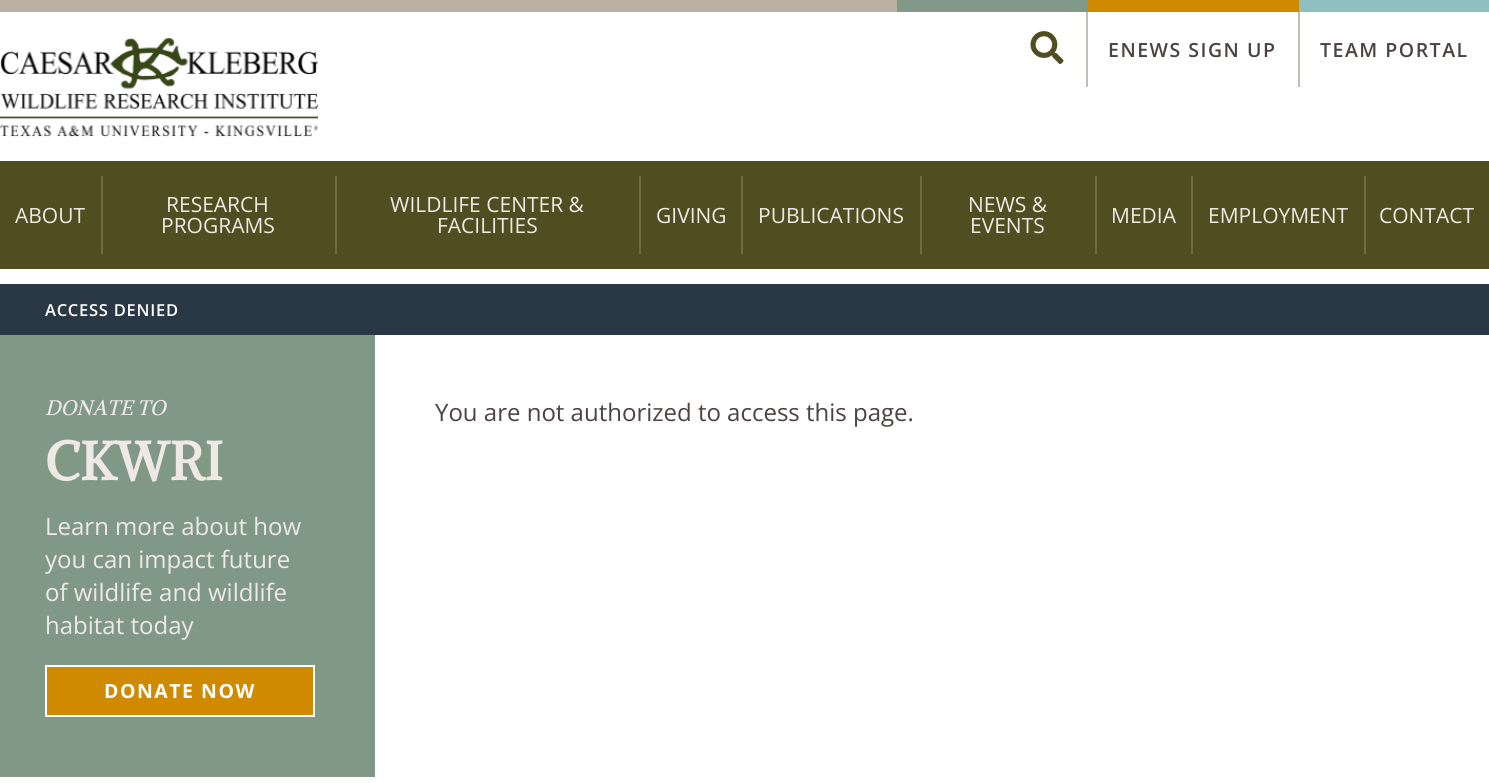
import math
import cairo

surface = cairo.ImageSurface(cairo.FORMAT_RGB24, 1489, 783)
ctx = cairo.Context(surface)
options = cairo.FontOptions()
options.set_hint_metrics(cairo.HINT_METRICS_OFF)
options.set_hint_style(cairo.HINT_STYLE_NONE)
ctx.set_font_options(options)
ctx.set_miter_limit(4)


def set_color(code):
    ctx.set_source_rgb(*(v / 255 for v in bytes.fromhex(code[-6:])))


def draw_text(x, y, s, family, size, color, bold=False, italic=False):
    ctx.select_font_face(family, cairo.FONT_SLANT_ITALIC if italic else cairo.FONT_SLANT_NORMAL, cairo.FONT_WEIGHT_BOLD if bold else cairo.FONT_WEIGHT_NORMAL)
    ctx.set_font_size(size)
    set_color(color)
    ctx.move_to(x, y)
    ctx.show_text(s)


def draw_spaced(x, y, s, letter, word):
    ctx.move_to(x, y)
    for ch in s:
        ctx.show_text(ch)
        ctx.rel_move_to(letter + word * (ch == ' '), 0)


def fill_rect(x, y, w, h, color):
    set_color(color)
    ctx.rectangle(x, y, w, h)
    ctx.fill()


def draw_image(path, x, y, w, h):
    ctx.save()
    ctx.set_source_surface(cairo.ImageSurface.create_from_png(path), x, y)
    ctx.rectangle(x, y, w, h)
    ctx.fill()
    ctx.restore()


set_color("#ffffff")
ctx.paint()
fill_rect(0, 0, 897, 12, "#bbb0a3")
draw_image("assets/img1.png", 0, 38, 318, 99)
fill_rect(1088, 0, 211, 12, "#d08a00")
fill_rect(1299, 0, 190, 12, "#8fbfbf")
fill_rect(897, 0, 191, 12, "#819988")
draw_image("assets/img2.png", 1030, 31, 34, 34)
fill_rect(1298, 12, 2, 75, "#c0bfb6")
fill_rect(1086, 12, 2, 75, "#c0bfb6")
ctx.select_font_face("Open Sans SemiBold")
ctx.set_font_size(19.5)
set_color("#4b4342")
draw_spaced(1108, 57, "ENEWS SIGN UP", 1.5, 0)
draw_spaced(1320, 57, "TEAM PORTAL", 1.5, 0)
fill_rect(0, 161, 1489, 108, "#504e20")
fill_rect(101, 176, 2, 78, "#6e6c43")
draw_text(15, 223, "ABOUT", "Open Sans", 21, "#efe9e5")
fill_rect(335, 176, 2, 78, "#6e6c43")
draw_text(166, 212, "RESEARCH", "Open Sans", 21, "#efe9e5")
draw_text(161, 233, "PROGRAMS", "Open Sans", 21, "#efe9e5")
fill_rect(639, 176, 2, 78, "#6e6c43")
draw_text(390, 212, "WILDLIFE CENTER &", "Open Sans", 21, "#efe9e5")
draw_text(437, 233, "FACILITIES", "Open Sans", 21, "#efe9e5")
fill_rect(741, 176, 2, 78, "#6e6c43")
draw_text(656, 223, "GIVING", "Open Sans", 21, "#efe9e5")
fill_rect(920, 176, 2, 78, "#6e6c43")
draw_text(758, 223, "PUBLICATIONS", "Open Sans", 21, "#efe9e5")
fill_rect(1095, 176, 2, 78, "#6e6c43")
draw_text(968, 212, "NEWS &", "Open Sans", 21, "#efe9e5")
draw_text(970, 233, "EVENTS", "Open Sans", 21, "#efe9e5")
fill_rect(1191, 176, 2, 78, "#6e6c43")
draw_text(1111, 223, "MEDIA", "Open Sans", 21, "#efe9e5")
fill_rect(1364, 176, 2, 78, "#6e6c43")
draw_text(1208, 223, "EMPLOYMENT", "Open Sans", 21, "#efe9e5")
draw_text(1379, 223, "CONTACT", "Open Sans", 21, "#efe9e5")
fill_rect(0, 284, 1489, 51, "#2a3744")
ctx.select_font_face("Open Sans SemiBold")
ctx.set_font_size(16.5)
set_color("#ffffff")
draw_spaced(45, 316, "ACCESS DENIED", 0.75, 0)
fill_rect(0, 335, 375, 442, "#809987")
ctx.select_font_face("Alike", cairo.FONT_SLANT_ITALIC)
ctx.set_font_size(21)
set_color("#efe9e5")
draw_spaced(45, 415, "DONATE TO", 0, -1)
draw_text(45, 480, "CKWRI", "Alike", 54, "#efe9e5", bold=True)
draw_text(45, 535, "Learn more about how", "Open Sans", 24, "#efe9e5")
draw_text(45, 568, "you can impact future", "Open Sans", 24, "#efe9e5")
draw_text(45, 601, "of wildlife and wildlife", "Open Sans", 24, "#efe9e5")
draw_text(45, 634, "habitat today", "Open Sans", 24, "#efe9e5")
set_color("#d08a00")
ctx.rectangle(46, 666, 268, 50)
ctx.fill_preserve()
set_color("#ffffff")
ctx.stroke()
ctx.select_font_face("Open Sans", cairo.FONT_SLANT_NORMAL, cairo.FONT_WEIGHT_BOLD)
ctx.set_font_size(19.5)
draw_spaced(104, 698, "DONATE NOW", 1.5, 0)
draw_text(435, 421, "You are not authorized to access this page.", "Open Sans", 24, "#4b4342")
surface.write_to_png("output.png")
